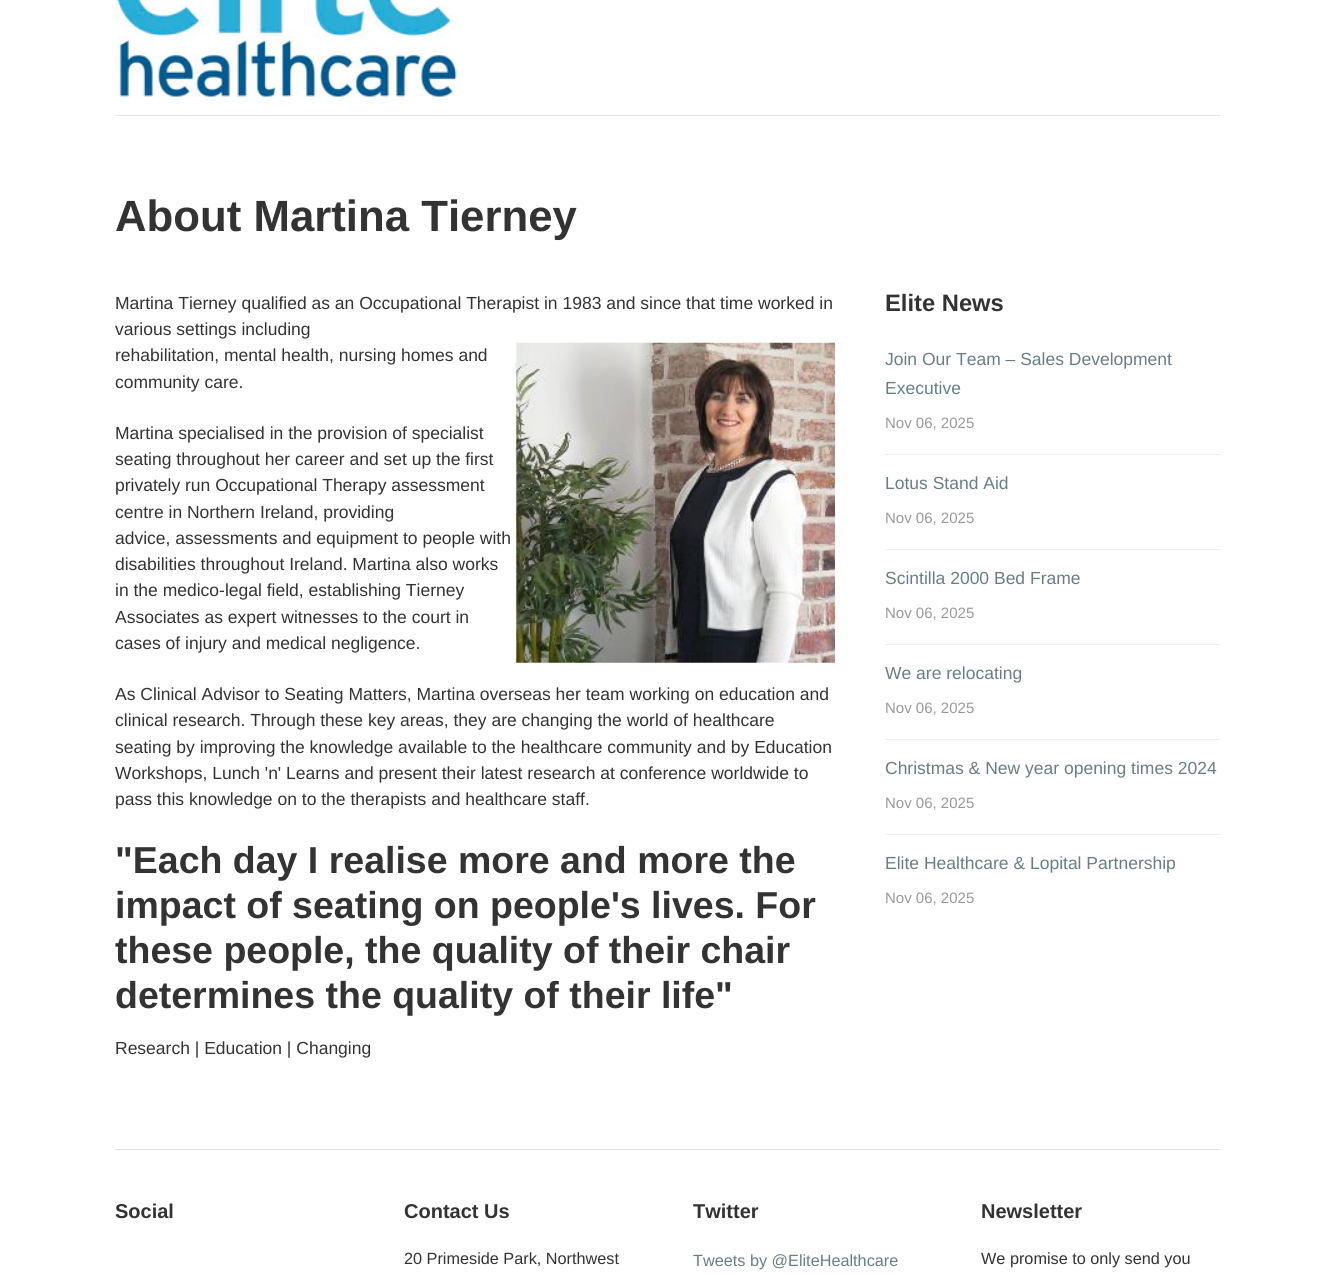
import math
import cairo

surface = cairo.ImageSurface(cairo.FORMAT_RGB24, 1334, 1276)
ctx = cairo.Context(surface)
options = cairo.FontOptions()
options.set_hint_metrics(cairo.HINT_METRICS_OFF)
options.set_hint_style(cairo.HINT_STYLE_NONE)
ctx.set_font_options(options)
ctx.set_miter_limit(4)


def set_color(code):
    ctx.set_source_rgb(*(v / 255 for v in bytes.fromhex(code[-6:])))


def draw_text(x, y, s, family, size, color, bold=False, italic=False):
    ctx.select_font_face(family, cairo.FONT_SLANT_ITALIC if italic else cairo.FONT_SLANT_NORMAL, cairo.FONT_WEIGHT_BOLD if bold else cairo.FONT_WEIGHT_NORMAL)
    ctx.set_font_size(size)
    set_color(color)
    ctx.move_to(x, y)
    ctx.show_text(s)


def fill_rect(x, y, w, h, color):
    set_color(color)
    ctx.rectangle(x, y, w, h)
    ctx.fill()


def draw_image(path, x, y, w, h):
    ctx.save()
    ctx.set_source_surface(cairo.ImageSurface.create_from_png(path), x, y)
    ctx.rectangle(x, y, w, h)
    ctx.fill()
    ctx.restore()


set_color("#ffffff")
ctx.paint()
fill_rect(115, 115, 1105, 1, "#e2e2e2")
draw_image("assets/img1.png", 115, 0, 344, 97)
draw_text(115, 231, "About Martina Tierney", "Liberation Sans", 43.75, "#333333", bold=True)
draw_text(115, 309, "Martina Tierney qualified as an Occupational Therapist in 1983 and since that time worked in", "Liberation Sans", 17.5, "#333333")
draw_text(115, 335, "various settings including", "Liberation Sans", 17.5, "#333333")
draw_text(115, 361, "rehabilitation, mental health, nursing homes and", "Liberation Sans", 17.5, "#333333")
draw_image("assets/img2.png", 515, 342, 320, 321)
draw_text(115, 388, "community care.", "Liberation Sans", 17.5, "#333333")
draw_text(115, 439, "Martina specialised in the provision of specialist", "Liberation Sans", 17.5, "#333333")
draw_text(115, 465, "seating throughout her career and set up the first", "Liberation Sans", 17.5, "#333333")
draw_text(115, 491, "privately run Occupational Therapy assessment", "Liberation Sans", 17.5, "#333333")
draw_text(115, 518, "centre in Northern Ireland, providing", "Liberation Sans", 17.5, "#333333")
draw_text(115, 544, "advice, assessments and equipment to people with", "Liberation Sans", 17.5, "#333333")
draw_text(115, 570, "disabilities throughout Ireland. Martina also works", "Liberation Sans", 17.5, "#333333")
draw_text(115, 596, "in the medico-legal field, establishing Tierney", "Liberation Sans", 17.5, "#333333")
draw_text(115, 623, "Associates as expert witnesses to the court in", "Liberation Sans", 17.5, "#333333")
draw_text(115, 649, "cases of injury and medical negligence.", "Liberation Sans", 17.5, "#333333")
draw_text(115, 700, "As Clinical Advisor to Seating Matters, Martina overseas her team working on education and", "Liberation Sans", 17.5, "#333333")
draw_text(115, 726, "clinical research. Through these key areas, they are changing the world of healthcare", "Liberation Sans", 17.5, "#333333")
draw_text(115, 753, "seating by improving the knowledge available to the healthcare community and by Education", "Liberation Sans", 17.5, "#333333")
draw_text(115, 779, "Workshops, Lunch 'n' Learns and present their latest research at conference worldwide to", "Liberation Sans", 17.5, "#333333")
draw_text(115, 805, "pass this knowledge on to the therapists and healthcare staff.", "Liberation Sans", 17.5, "#333333")
draw_text(115, 873, "\"Each day I realise more and more the", "Liberation Sans", 37.5, "#333333", bold=True)
draw_text(115, 918, "impact of seating on people's lives. For", "Liberation Sans", 37.5, "#333333", bold=True)
draw_text(115, 963, "these people, the quality of their chair", "Liberation Sans", 37.5, "#333333", bold=True)
draw_text(115, 1008, "determines the quality of their life\"", "Liberation Sans", 37.5, "#333333", bold=True)
draw_text(115, 1054, "Research | Education | Changing", "Liberation Sans", 17.5, "#333333")
draw_text(885, 311, "Elite News", "Liberation Sans", 23.75, "#333333", bold=True)
fill_rect(885, 454, 335, 1, "#eeeeee")
draw_text(885, 365, "Join Our Team – Sales Development", "Liberation Sans", 17.5, "#677e87")
draw_text(885, 394, "Executive", "Liberation Sans", 17.5, "#677e87")
draw_text(885, 428, "Nov 06, 2025", "Liberation Sans", 15, "#999999")
fill_rect(885, 549, 335, 1, "#eeeeee")
draw_text(885, 489, "Lotus Stand Aid", "Liberation Sans", 17.5, "#677e87")
draw_text(885, 523, "Nov 06, 2025", "Liberation Sans", 15, "#999999")
fill_rect(885, 644, 335, 1, "#eeeeee")
draw_text(885, 584, "Scintilla 2000 Bed Frame", "Liberation Sans", 17.5, "#677e87")
draw_text(885, 618, "Nov 06, 2025", "Liberation Sans", 15, "#999999")
fill_rect(885, 739, 335, 1, "#eeeeee")
draw_text(885, 679, "We are relocating", "Liberation Sans", 17.5, "#677e87")
draw_text(885, 713, "Nov 06, 2025", "Liberation Sans", 15, "#999999")
fill_rect(885, 834, 335, 1, "#eeeeee")
draw_text(885, 774, "Christmas & New year opening times 2024", "Liberation Sans", 17.5, "#677e87")
draw_text(885, 808, "Nov 06, 2025", "Liberation Sans", 15, "#999999")
draw_text(885, 869, "Elite Healthcare & Lopital Partnership", "Liberation Sans", 17.5, "#677e87")
draw_text(885, 903, "Nov 06, 2025", "Liberation Sans", 15, "#999999")
fill_rect(115, 1149, 1105, 1, "#e2e2e2")
draw_text(115, 1218, "Social", "Liberation Sans", 20, "#333333", bold=True)
draw_text(404, 1218, "Contact Us", "Liberation Sans", 20, "#333333", bold=True)
draw_text(404, 1264, "20 Primeside Park, Northwest", "Liberation Sans", 16.25, "#333333")
draw_text(693, 1218, "Twitter", "Liberation Sans", 20, "#333333", bold=True)
draw_text(693, 1266, "Tweets by @EliteHealthcare", "Liberation Sans", 16.25, "#677e87")
draw_text(981, 1218, "Newsletter", "Liberation Sans", 20, "#333333", bold=True)
draw_text(981, 1264, "We promise to only send you", "Liberation Sans", 16.25, "#333333")
surface.write_to_png("output.png")
